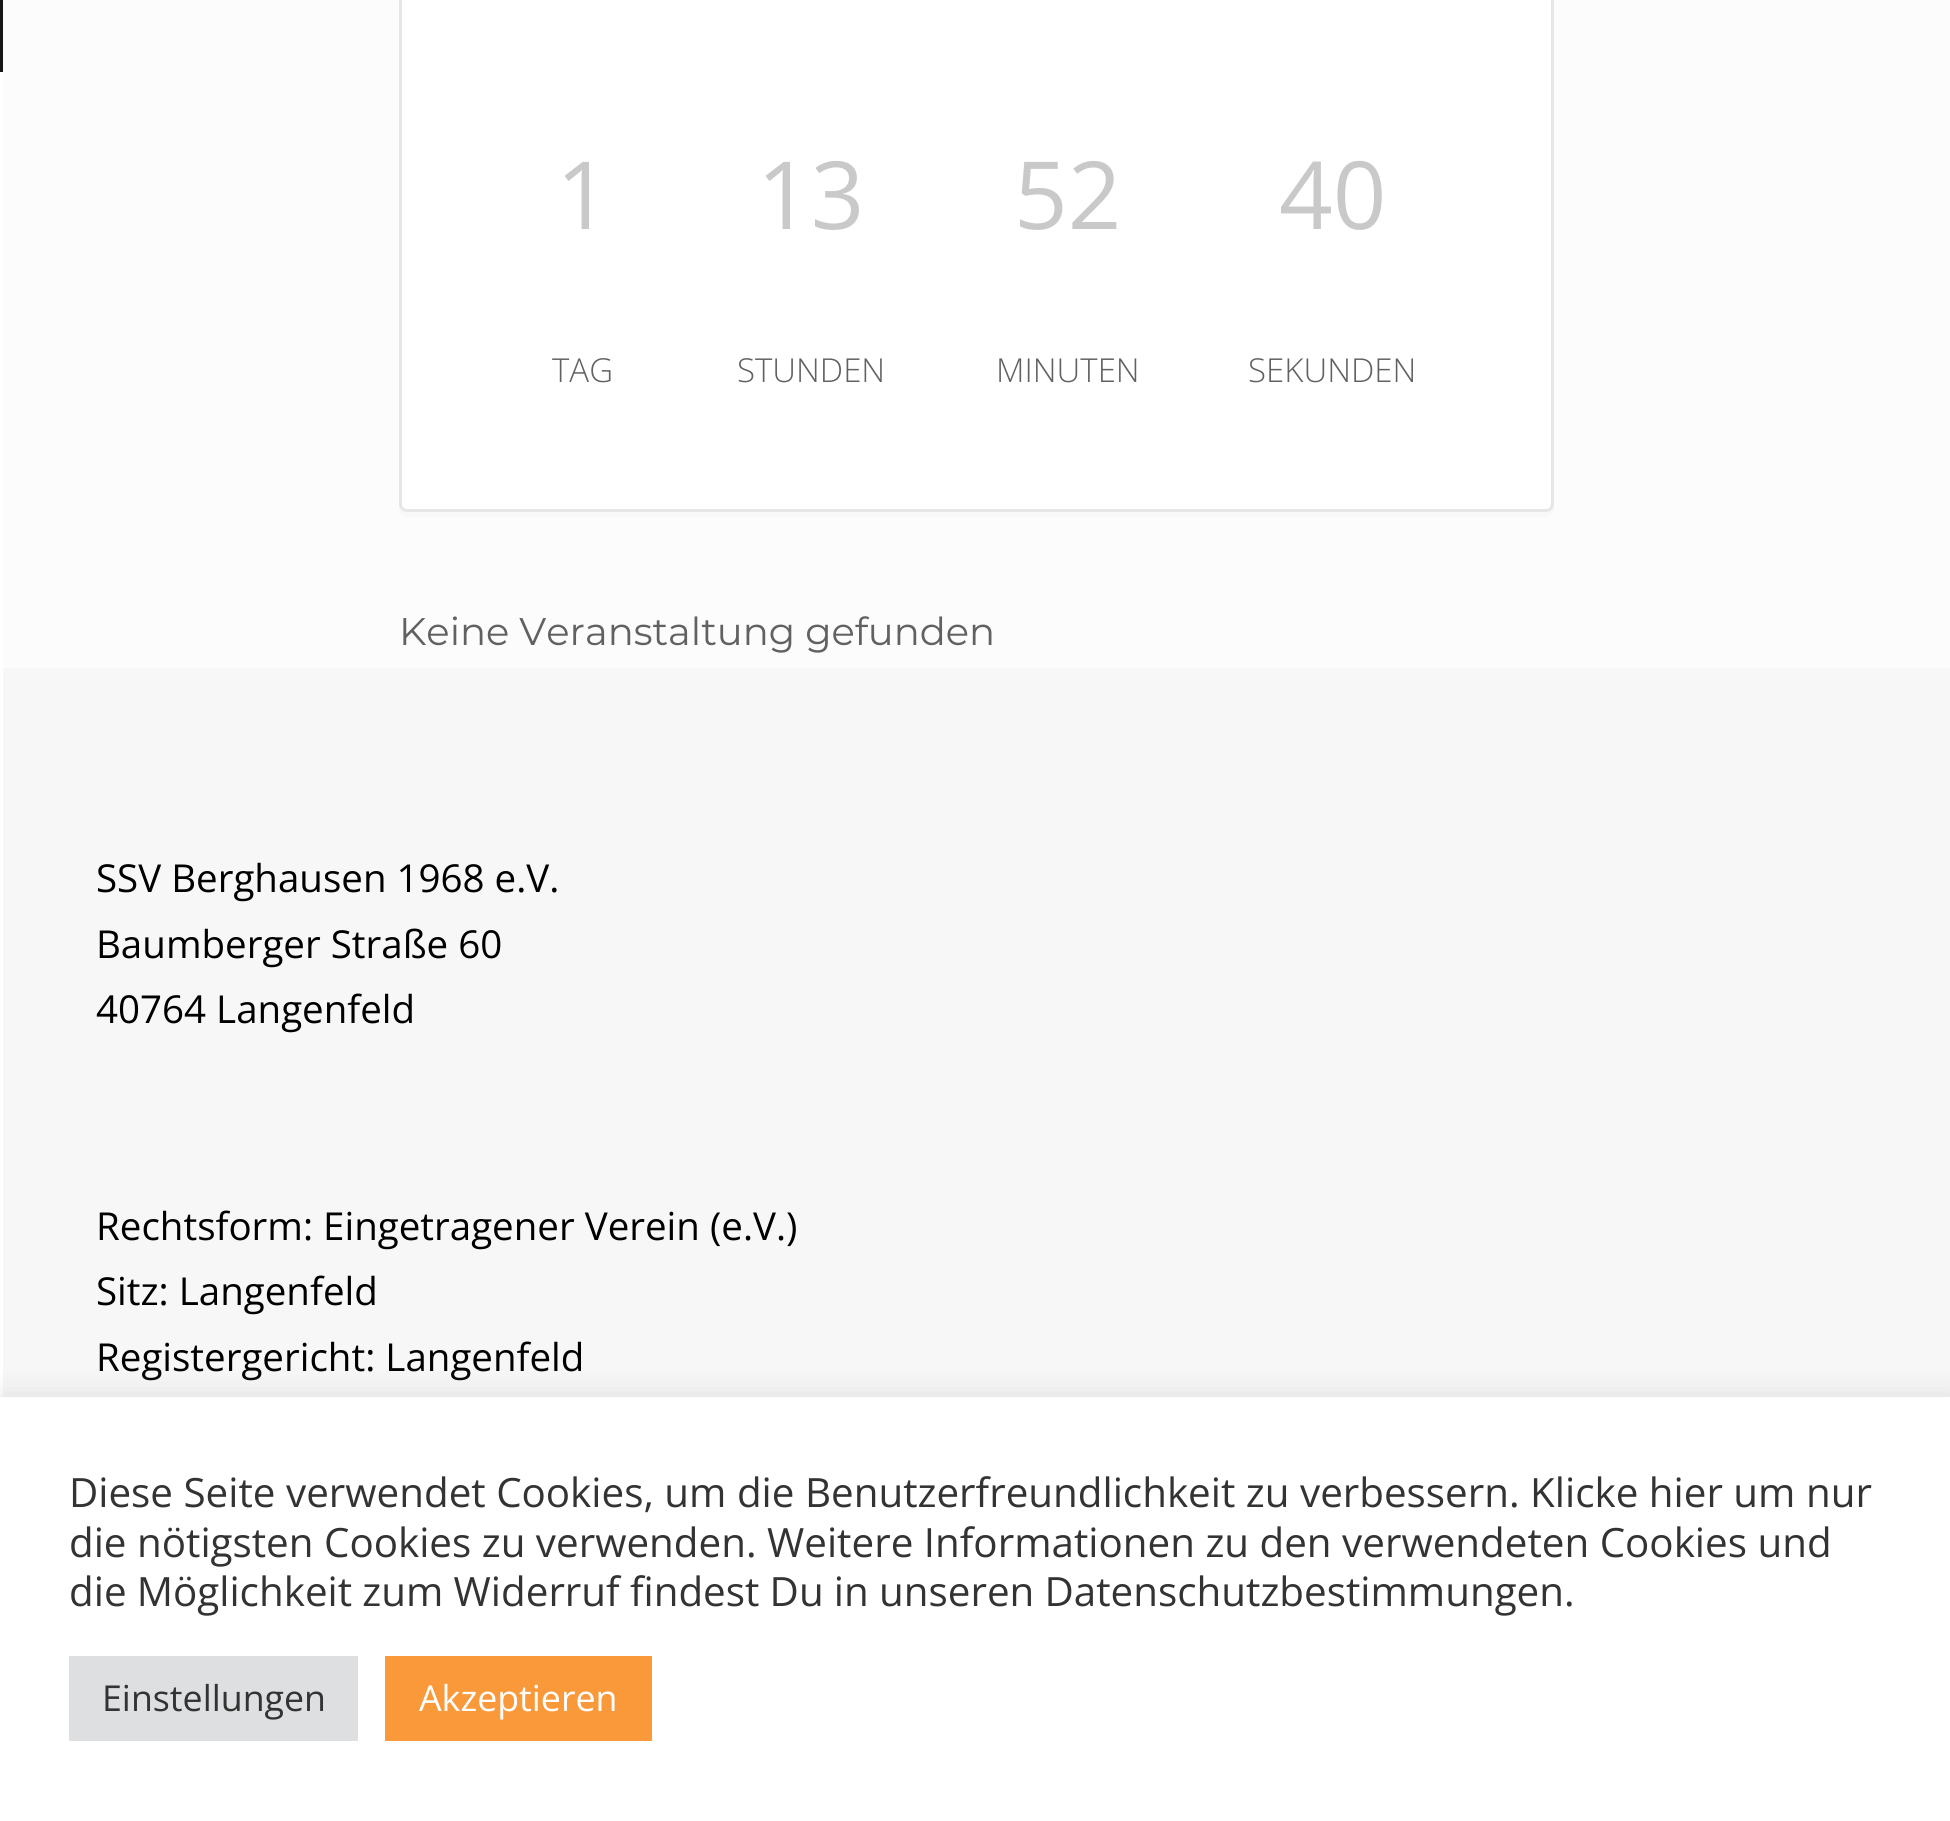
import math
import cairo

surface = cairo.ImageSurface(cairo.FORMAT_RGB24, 1950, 1821)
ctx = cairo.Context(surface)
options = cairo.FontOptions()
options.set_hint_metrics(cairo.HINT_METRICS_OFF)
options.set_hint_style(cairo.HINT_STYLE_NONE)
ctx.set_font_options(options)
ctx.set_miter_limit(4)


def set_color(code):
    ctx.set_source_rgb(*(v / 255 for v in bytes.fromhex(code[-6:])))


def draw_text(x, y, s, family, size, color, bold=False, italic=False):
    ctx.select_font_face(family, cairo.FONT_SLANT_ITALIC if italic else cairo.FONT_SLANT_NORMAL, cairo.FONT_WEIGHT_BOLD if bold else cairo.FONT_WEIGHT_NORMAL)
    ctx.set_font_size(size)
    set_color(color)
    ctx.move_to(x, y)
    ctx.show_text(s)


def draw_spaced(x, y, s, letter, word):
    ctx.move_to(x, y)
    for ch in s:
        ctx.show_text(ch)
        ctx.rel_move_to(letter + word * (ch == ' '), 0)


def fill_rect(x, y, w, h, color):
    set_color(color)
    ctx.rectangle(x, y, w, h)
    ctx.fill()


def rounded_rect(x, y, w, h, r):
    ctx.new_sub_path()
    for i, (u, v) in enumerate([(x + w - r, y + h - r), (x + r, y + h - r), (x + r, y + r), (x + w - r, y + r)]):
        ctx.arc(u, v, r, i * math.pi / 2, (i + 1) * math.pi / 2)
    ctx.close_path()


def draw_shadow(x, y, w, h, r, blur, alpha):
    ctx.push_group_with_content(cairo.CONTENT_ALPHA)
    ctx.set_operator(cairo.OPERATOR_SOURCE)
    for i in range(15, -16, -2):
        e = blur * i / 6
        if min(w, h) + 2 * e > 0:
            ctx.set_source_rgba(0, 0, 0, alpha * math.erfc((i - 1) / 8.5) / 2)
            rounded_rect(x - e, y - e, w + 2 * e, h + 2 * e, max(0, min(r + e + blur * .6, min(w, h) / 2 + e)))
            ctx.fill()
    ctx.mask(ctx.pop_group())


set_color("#fcfcfc")
ctx.paint()
fill_rect(0, 72, 3, 1325, "#ffffff")
fill_rect(0, 0, 3, 72, "#161616")
set_color("#f8f8f8")
ctx.new_path()
ctx.move_to(399, 505)
ctx.line_to(399, 509)
ctx.curve_to(399, 513, 403, 517, 407, 517)
ctx.line_to(1546, 517)
ctx.curve_to(1550, 517, 1554, 513, 1554, 509)
ctx.line_to(1554, -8)
ctx.line_to(1554, 503)
ctx.curve_to(1554, 508, 1550, 512, 1546, 512)
ctx.line_to(407, 512)
ctx.curve_to(403, 512, 400, 509, 399, 505)
ctx.close_path()
ctx.fill()
set_color("#ffffff")
rounded_rect(400.5, -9.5, 1152, 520, 6.5)
ctx.fill_preserve()
set_color("#e6e6e6")
ctx.set_line_width(3)
ctx.stroke()
draw_text(556, 229, "1", "Open Sans", 94, "#c9c9c9")
draw_text(552, 382, "TAG", "Open Sans Light", 33, "#616161")
draw_text(757, 229, "13", "Open Sans", 94, "#c9c9c9")
draw_text(737, 382, "STUNDEN", "Open Sans Light", 33, "#616161")
draw_text(1014, 229, "52", "Open Sans", 94, "#c9c9c9")
draw_text(996, 382, "MINUTEN", "Open Sans Light", 33, "#616161")
draw_text(1279, 229, "40", "Open Sans", 94, "#c9c9c9")
draw_text(1248, 382, "SEKUNDEN", "Open Sans Light", 33, "#616161")
draw_text(399, 645, "Keine Veranstaltung gefunden", "Montserrat", 38.5, "#616161")
fill_rect(3, 668, 1947, 729, "#f7f7f7")
draw_text(96, 892, "SSV Berghausen 1968 e.V.", "Open Sans", 38.5, "#000000")
draw_text(96, 958, "Baumberger Straße 60", "Open Sans", 38.5, "#000000")
draw_text(96, 1023, "40764 Langenfeld", "Open Sans", 38.5, "#000000")
draw_text(96, 1240, "Rechtsform: Eingetragener Verein (e.V.)", "Open Sans", 38.5, "#000000")
draw_text(96, 1305, "Sitz: Langenfeld", "Open Sans", 38.5, "#000000")
draw_text(96, 1371, "Registergericht: Langenfeld", "Open Sans", 38.5, "#000000")
set_color("#acabab")
draw_shadow(0, 1394, 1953, 427, 0, 14, 0.3)
fill_rect(0, 1397, 1950, 424, "#ffffff")
draw_text(69, 1507, "Diese Seite verwendet Cookies, um die Benutzerfreundlichkeit zu verbessern. Klicke hier um nur", "Open Sans", 40.35, "#333333")
draw_text(69, 1557, "die nötigsten Cookies zu verwenden. Weitere Informationen zu den verwendeten Cookies und", "Open Sans", 40.35, "#333333")
draw_spaced(69, 1606, "die Möglichkeit zum Widerruf findest Du in unseren Datenschutzbestimmungen.", 0, -0.25)
fill_rect(69, 1656, 289, 85, "#dedfe0")
draw_text(102, 1711, "Einstellungen", "Open Sans", 35.75, "#333333")
fill_rect(385, 1656, 267, 85, "#f99939")
draw_text(419, 1711, "Akzeptieren", "Open Sans", 35.75, "#ffffff")
surface.write_to_png("output.png")
